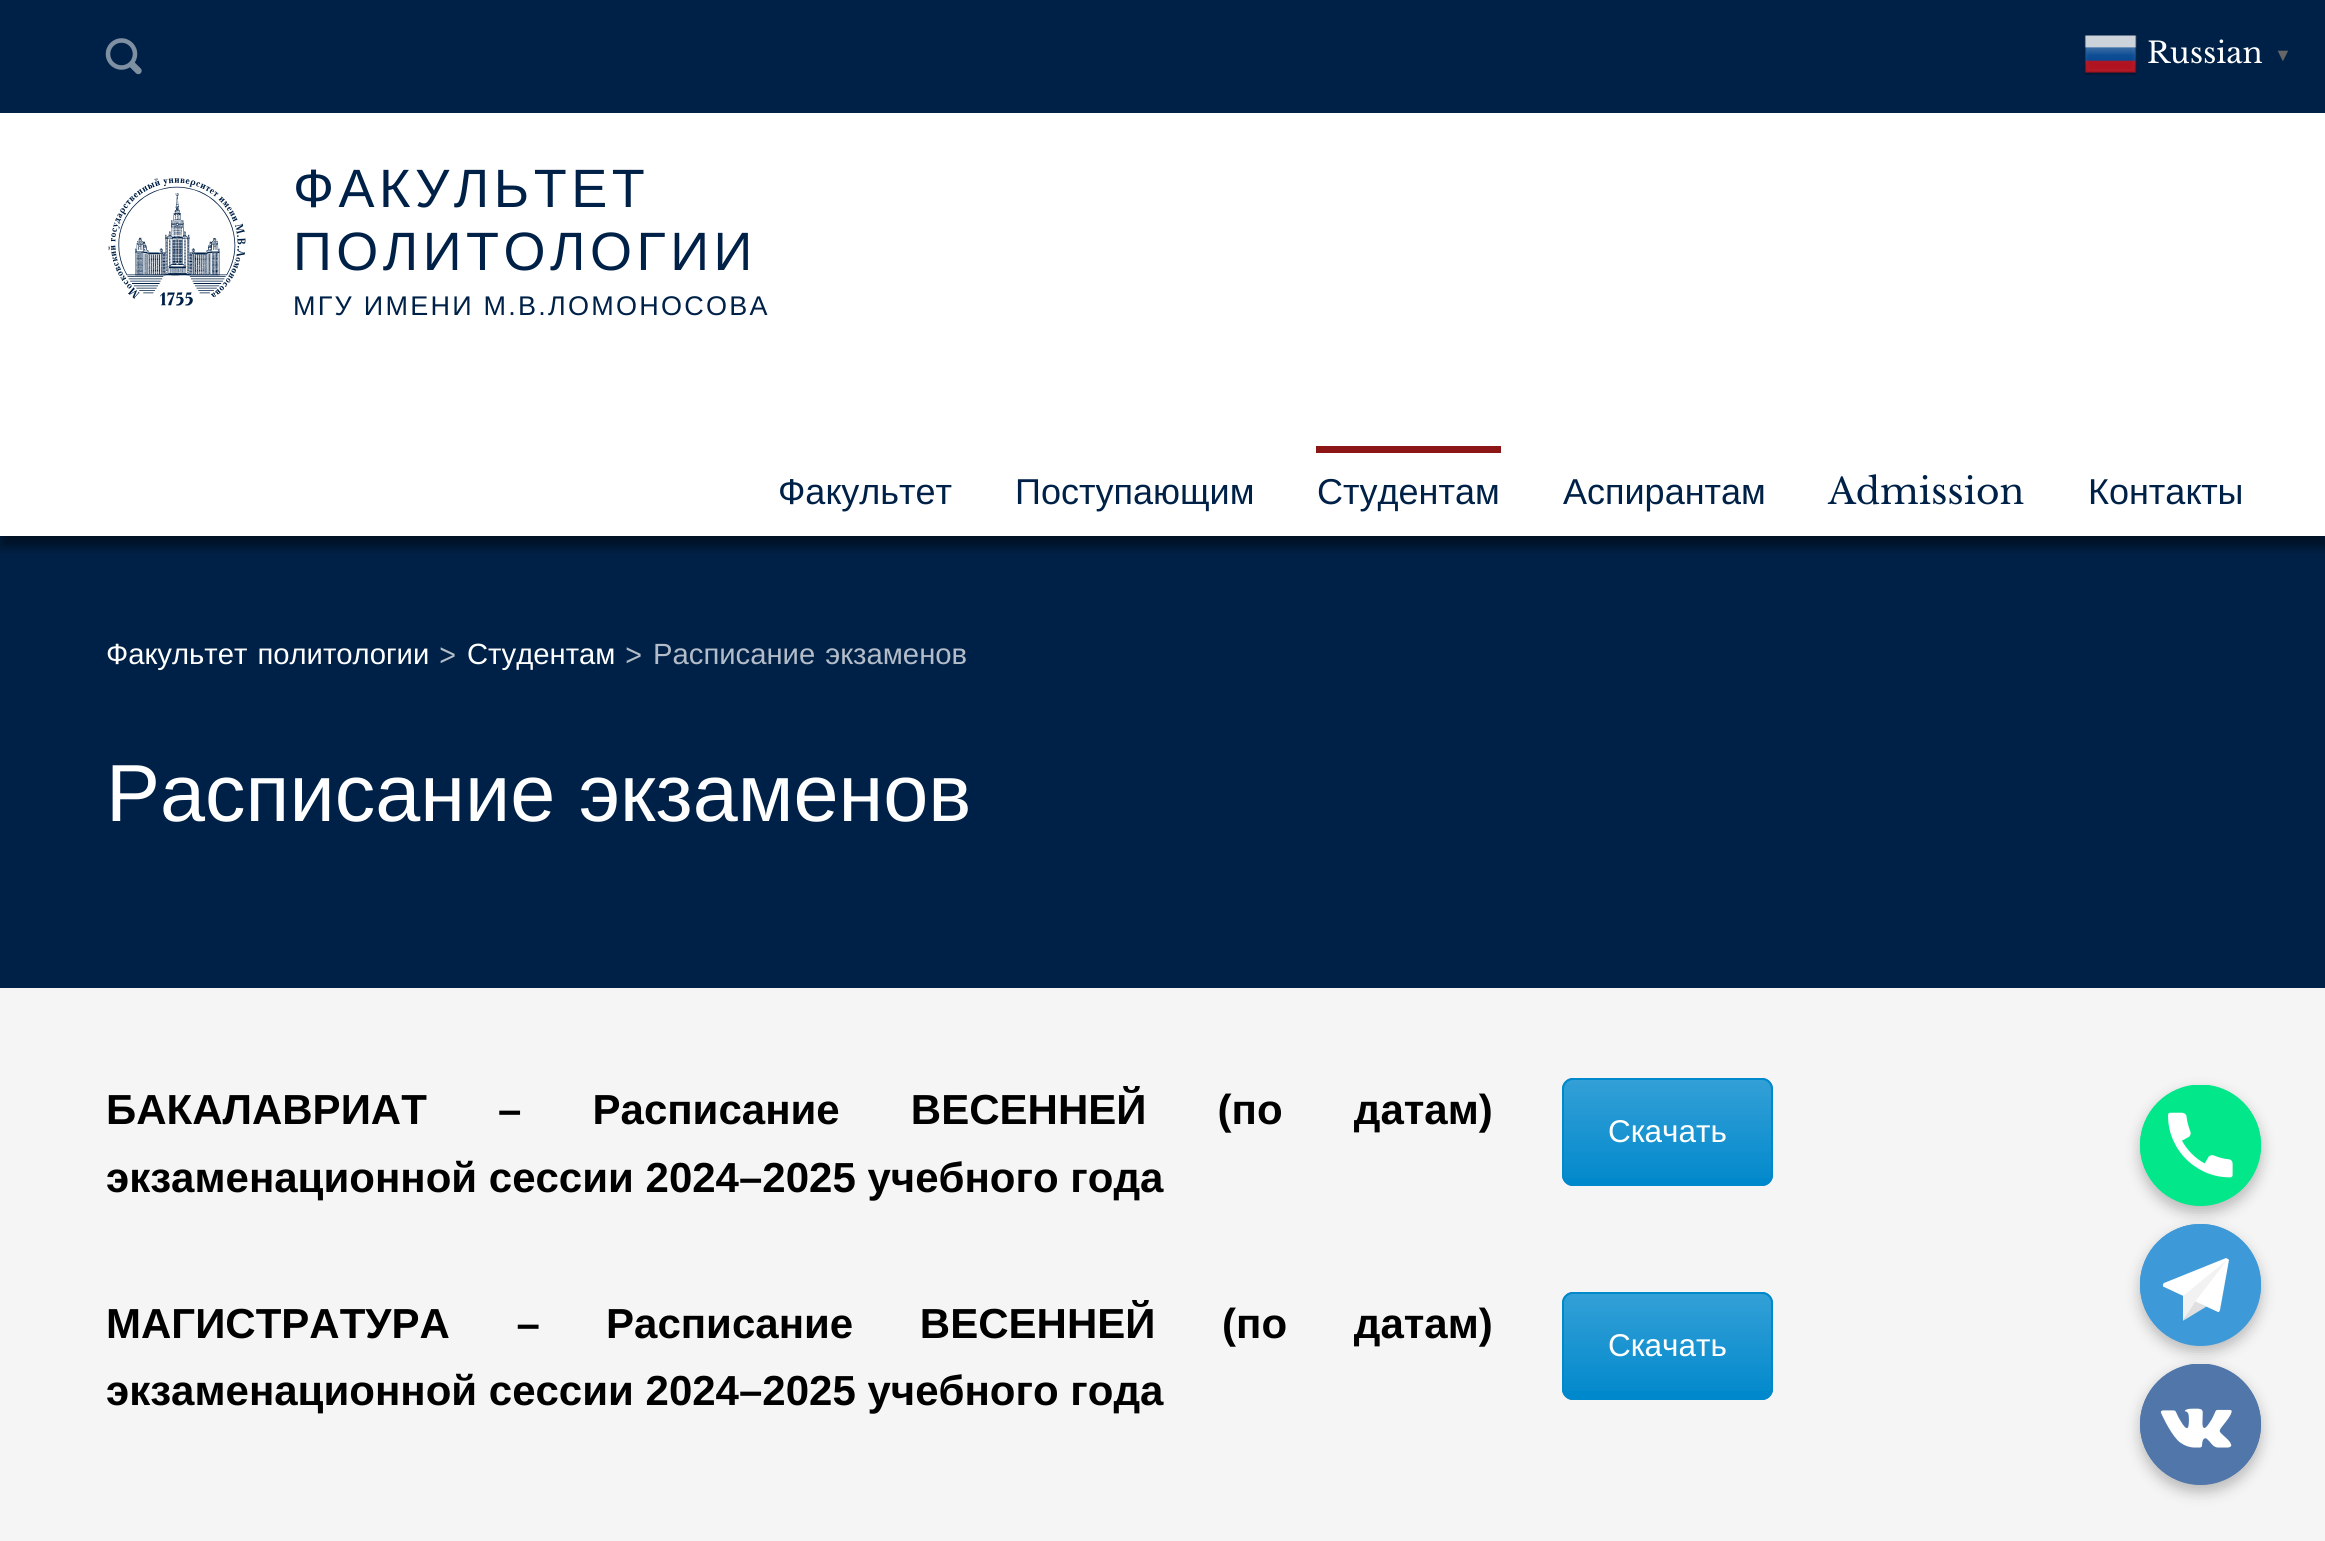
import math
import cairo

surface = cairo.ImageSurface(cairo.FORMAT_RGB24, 2325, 1541)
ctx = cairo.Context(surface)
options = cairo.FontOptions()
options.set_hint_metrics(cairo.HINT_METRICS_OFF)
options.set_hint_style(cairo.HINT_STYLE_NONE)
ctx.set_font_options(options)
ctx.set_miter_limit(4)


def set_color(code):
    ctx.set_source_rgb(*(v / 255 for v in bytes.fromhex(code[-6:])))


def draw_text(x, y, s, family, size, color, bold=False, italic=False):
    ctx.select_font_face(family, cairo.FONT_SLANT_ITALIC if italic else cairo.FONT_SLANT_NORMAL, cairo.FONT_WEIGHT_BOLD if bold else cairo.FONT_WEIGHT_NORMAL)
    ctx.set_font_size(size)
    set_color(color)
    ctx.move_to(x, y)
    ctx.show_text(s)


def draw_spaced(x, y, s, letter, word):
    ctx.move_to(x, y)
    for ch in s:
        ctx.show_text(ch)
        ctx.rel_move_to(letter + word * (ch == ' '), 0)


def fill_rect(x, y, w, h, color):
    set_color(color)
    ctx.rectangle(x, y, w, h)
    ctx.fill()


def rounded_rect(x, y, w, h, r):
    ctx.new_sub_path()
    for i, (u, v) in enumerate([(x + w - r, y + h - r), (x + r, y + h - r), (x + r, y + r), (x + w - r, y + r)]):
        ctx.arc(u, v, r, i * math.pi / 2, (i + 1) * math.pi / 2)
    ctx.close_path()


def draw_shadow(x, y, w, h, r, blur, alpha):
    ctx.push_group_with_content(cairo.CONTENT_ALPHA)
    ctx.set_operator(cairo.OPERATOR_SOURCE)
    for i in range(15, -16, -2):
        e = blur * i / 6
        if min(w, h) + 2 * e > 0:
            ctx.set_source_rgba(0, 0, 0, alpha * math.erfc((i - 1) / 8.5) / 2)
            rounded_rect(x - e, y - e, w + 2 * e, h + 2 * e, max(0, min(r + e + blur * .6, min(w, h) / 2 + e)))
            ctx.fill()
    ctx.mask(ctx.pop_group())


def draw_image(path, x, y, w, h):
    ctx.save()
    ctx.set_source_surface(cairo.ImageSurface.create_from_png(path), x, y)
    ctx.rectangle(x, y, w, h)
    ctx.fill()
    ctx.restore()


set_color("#f5f5f5")
ctx.paint()
fill_rect(0, 536, 2325, 452, "#002147")
set_color("#000000")
draw_shadow(0, 11, 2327, 536, 0, 5.5, 0.5)
fill_rect(0, 0, 2325, 113, "#002147")
draw_image("assets/img1.png", 2083, 35, 55, 41)
draw_text(2147, 63, "Russian", "Libre Baskerville", 29.25, "#ffffff")
draw_text(2274, 61, "▼", "Liberation Sans", 18, "#666666", bold=True)
fill_rect(0, 113, 2325, 423, "#ffffff")
draw_image("assets/img2.png", 105, 38, 37, 37)
draw_image("assets/img3.png", 108, 178, 138, 128)
ctx.select_font_face("Liberation Sans")
ctx.set_font_size(54)
set_color("#002147")
draw_spaced(293, 207, "ФАКУЛЬТЕТ", 4.5, 0)
draw_spaced(293, 270, "ПОЛИТОЛОГИИ", 4.5, 0)
ctx.set_font_size(27)
draw_spaced(293, 315, "МГУ ИМЕНИ М.В.ЛОМОНОСОВА", 2.25, 0)
draw_text(778, 504, "Факультет", "Liberation Sans", 36, "#002147")
draw_text(1015, 504, "Поступающим", "Liberation Sans", 36, "#002147")
fill_rect(1316, 446, 185, 7, "#8c1515")
draw_text(1317, 504, "Студентам", "Liberation Sans", 36, "#002147")
draw_text(1563, 504, "Аспирантам", "Liberation Sans", 36, "#002147")
draw_text(1828, 504, "Admission", "Libre Baskerville", 36, "#002147")
draw_text(2088, 504, "Контакты", "Liberation Sans", 36, "#002147")
ctx.set_font_size(29.25)
set_color("#ffffff")
draw_spaced(106, 664, "Факультет политологии", 0, 2)
draw_text(439, 664, ">", "Work Sans", 29.25, "#b3bcc8")
draw_text(467, 664, "Студентам", "Liberation Sans", 29.25, "#ffffff")
draw_text(625, 664, ">", "Work Sans", 29.25, "#b3bcc8")
ctx.select_font_face("Liberation Sans")
draw_spaced(653, 664, "Расписание экзаменов", 0, 2)
ctx.set_font_size(81)
set_color("#ffffff")
draw_spaced(106, 821, "Расписание экзаменов", 0, 1)
ctx.select_font_face("Liberation Sans", cairo.FONT_SLANT_NORMAL, cairo.FONT_WEIGHT_BOLD)
ctx.set_font_size(42)
set_color("#000000")
draw_spaced(106, 1124, "БАКАЛАВРИАТ – Расписание ВЕСЕННЕЙ (по датам)", 0, 59.5)
draw_text(106, 1192, "экзаменационной сессии 2024–2025 учебного года", "Liberation Sans", 42, "#000000", bold=True)
set_color("#0088cc")
rounded_rect(1562, 1078, 211, 108, 11)
ctx.fill()
ctx.save()
rounded_rect(1562, 1078, 211, 108, 11)
ctx.clip()
gradient = cairo.LinearGradient(1667, 1080, 1667, 1184)
gradient.add_color_stop_rgba(0, 1, 1, 1, 0.2)
gradient.add_color_stop_rgba(1, 1, 1, 1, 0.01)
ctx.set_source(gradient)
ctx.rectangle(1562, 1080, 211, 98)
ctx.fill()
ctx.restore()
rounded_rect(1563, 1079, 209, 106, 10)
ctx.stroke()
draw_text(1608, 1142, "Скачать", "Liberation Sans", 31.5, "#ffffff")
ctx.select_font_face("Liberation Sans", cairo.FONT_SLANT_NORMAL, cairo.FONT_WEIGHT_BOLD)
ctx.set_font_size(42)
set_color("#000000")
draw_spaced(106, 1338, "МАГИСТРАТУРА –", 0, 55)
draw_spaced(606, 1338, "Расписание ВЕСЕННЕЙ (по датам)", 0, 55)
draw_text(106, 1405, "экзаменационной сессии 2024–2025 учебного года", "Liberation Sans", 42, "#000000", bold=True)
set_color("#0088cc")
rounded_rect(1562, 1292, 211, 108, 11)
ctx.fill()
ctx.save()
rounded_rect(1562, 1292, 211, 108, 11)
ctx.clip()
gradient = cairo.LinearGradient(1667, 1294, 1667, 1397)
gradient.add_color_stop_rgba(0, 1, 1, 1, 0.2)
gradient.add_color_stop_rgba(1, 1, 1, 1, 0.01)
ctx.set_source(gradient)
ctx.rectangle(1562, 1294, 211, 97)
ctx.fill()
ctx.restore()
rounded_rect(1563, 1293, 209, 106, 10)
ctx.stroke()
draw_text(1608, 1356, "Скачать", "Liberation Sans", 31.5, "#ffffff")
set_color("#000000")
draw_shadow(2140, 1091, 121, 122, 60.5, 7, 0.25)
set_color("#03e78b")
ctx.arc(2200.5, 1145.5, 60.5, 0, 2 * math.pi)
ctx.fill()
draw_image("assets/img4.png", 2140, 1085, 121, 121)
set_color("#000000")
draw_shadow(2140, 1231, 121, 121, 60.5, 7, 0.25)
set_color("#3e99d8")
rounded_rect(2140, 1224, 121, 122, 60.5)
ctx.fill()
ctx.arc(2200.5, 1284.5, 60.5, 0, 2 * math.pi)
ctx.fill()
set_color("#e0e0e0")
ctx.new_path()
ctx.move_to(2194.5, 1300.5)
ctx.line_to(2183.5, 1320.5)
ctx.line_to(2206.5, 1306.5)
ctx.close_path()
ctx.fill()
set_color("#ffffff")
ctx.new_path()
ctx.move_to(2228, 1259)
ctx.line_to(2226, 1258)
ctx.line_to(2164, 1283)
ctx.curve_to(2163, 1284, 2163, 1284, 2163, 1285)
ctx.curve_to(2163, 1286, 2163, 1287, 2164, 1287)
ctx.line_to(2218, 1312)
ctx.curve_to(2219, 1312, 2219, 1312, 2219, 1312)
ctx.line_to(2220, 1310)
ctx.line_to(2229, 1260)
ctx.close_path()
ctx.fill()
set_color("#f2f2f2")
ctx.new_path()
ctx.move_to(2227, 1260)
ctx.line_to(2183, 1296)
ctx.line_to(2183, 1321)
ctx.line_to(2195, 1302)
ctx.close_path()
ctx.fill()
set_color("#000000")
draw_shadow(2140, 1370, 121, 122, 60.5, 7, 0.25)
set_color("#5076aa")
ctx.arc(2200.5, 1424.5, 60.5, 0, 2 * math.pi)
ctx.fill()
draw_image("assets/img5.png", 2140, 1364, 121, 121)
surface.write_to_png("output.png")
